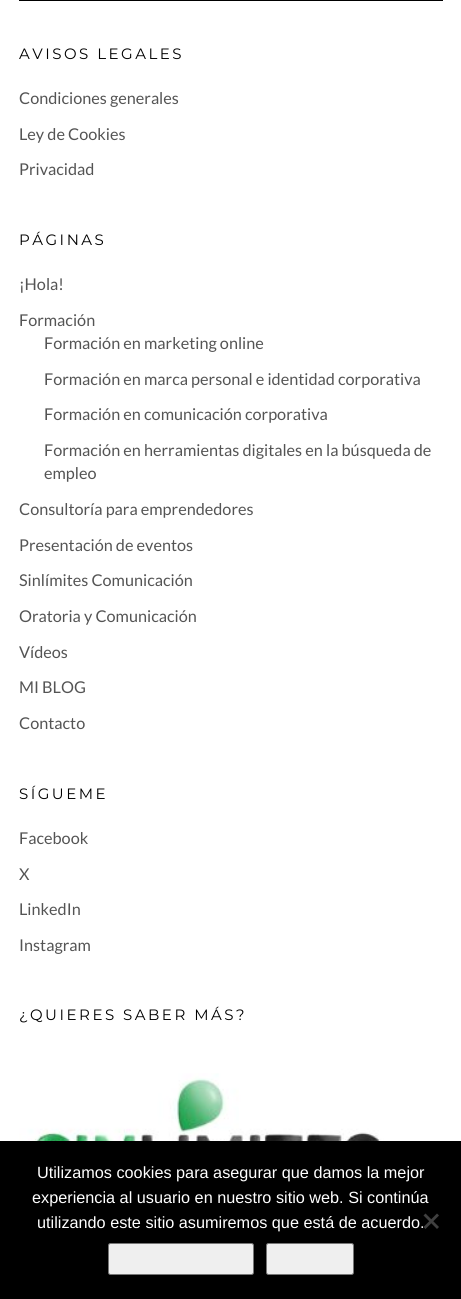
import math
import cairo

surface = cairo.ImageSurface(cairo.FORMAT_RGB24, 461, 1299)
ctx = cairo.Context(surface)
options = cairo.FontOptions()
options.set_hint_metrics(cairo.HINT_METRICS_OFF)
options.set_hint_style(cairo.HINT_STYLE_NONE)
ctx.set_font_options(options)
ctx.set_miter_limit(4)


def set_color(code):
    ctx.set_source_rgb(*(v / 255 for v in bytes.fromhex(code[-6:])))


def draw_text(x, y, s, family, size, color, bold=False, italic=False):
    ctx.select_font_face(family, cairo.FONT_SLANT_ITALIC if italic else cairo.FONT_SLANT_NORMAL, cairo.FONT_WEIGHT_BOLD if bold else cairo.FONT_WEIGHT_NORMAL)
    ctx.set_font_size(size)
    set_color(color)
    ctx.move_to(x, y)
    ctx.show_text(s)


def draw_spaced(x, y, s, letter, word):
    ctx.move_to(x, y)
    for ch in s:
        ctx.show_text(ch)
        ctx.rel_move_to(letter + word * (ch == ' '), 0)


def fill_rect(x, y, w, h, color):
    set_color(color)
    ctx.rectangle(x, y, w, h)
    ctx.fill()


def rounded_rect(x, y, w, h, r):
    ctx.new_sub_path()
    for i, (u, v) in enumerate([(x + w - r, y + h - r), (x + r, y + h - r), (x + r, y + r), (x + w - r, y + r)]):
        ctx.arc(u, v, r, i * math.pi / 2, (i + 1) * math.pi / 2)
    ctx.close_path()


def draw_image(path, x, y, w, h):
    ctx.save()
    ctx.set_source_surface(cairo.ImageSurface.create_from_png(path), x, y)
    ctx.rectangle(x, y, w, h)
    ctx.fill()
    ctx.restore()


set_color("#ffffff")
ctx.paint()
fill_rect(19, 0, 424, 1, "#000000")
ctx.select_font_face("Montserrat")
ctx.set_font_size(15)
draw_spaced(19, 59, "AVISOS LEGALES", 2.5, 0)
draw_text(19, 104, "Condiciones generales", "Lato", 16.25, "#545454")
draw_text(19, 140, "Ley de Cookies", "Lato", 16.25, "#545454")
draw_text(19, 175, "Privacidad", "Lato", 16.25, "#545454")
ctx.select_font_face("Montserrat")
ctx.set_font_size(15)
set_color("#000000")
draw_spaced(19, 245, "PÁGINAS", 2.5, 0)
draw_text(19, 290, "¡Hola!", "Lato", 16.25, "#545454")
draw_text(19, 326, "Formación", "Lato", 16.25, "#545454")
draw_text(44, 349, "Formación en marketing online", "Lato", 16.25, "#545454")
draw_text(44, 385, "Formación en marca personal e identidad corporativa", "Lato", 16.25, "#545454")
draw_text(44, 420, "Formación en comunicación corporativa", "Lato", 16.25, "#545454")
draw_text(44, 456, "Formación en herramientas digitales en la búsqueda de", "Lato", 16.25, "#545454")
draw_text(44, 479, "empleo", "Lato", 16.25, "#545454")
draw_text(19, 515, "Consultoría para emprendedores", "Lato", 16.25, "#545454")
draw_text(19, 551, "Presentación de eventos", "Lato", 16.25, "#545454")
draw_text(19, 586, "Sinlímites Comunicación", "Lato", 16.25, "#545454")
draw_text(19, 622, "Oratoria y Comunicación", "Lato", 16.25, "#545454")
draw_text(19, 658, "Vídeos", "Lato", 16.25, "#545454")
draw_text(19, 693, "MI BLOG", "Lato", 16.25, "#545454")
draw_text(19, 729, "Contacto", "Lato", 16.25, "#545454")
ctx.select_font_face("Montserrat")
ctx.set_font_size(15)
set_color("#000000")
draw_spaced(19, 799, "SÍGUEME", 2.5, 0)
draw_text(19, 844, "Facebook", "Lato", 16.25, "#545454")
draw_text(19, 880, "X", "Lato", 16.25, "#545454")
draw_text(19, 915, "LinkedIn", "Lato", 16.25, "#545454")
draw_text(19, 951, "Instagram", "Lato", 16.25, "#545454")
ctx.select_font_face("Montserrat")
ctx.set_font_size(15)
set_color("#000000")
draw_spaced(19, 1020, "¿QUIERES SABER MÁS?", 2.5, 0)
draw_image("assets/img1.png", 19, 1073, 365, 68)
fill_rect(0, 1141, 461, 158, "#000000")
draw_text(37, 1178, "Utilizamos cookies para asegurar que damos la mejor", "Liberation Sans", 16.25, "#ffffff")
draw_text(32, 1203, "experiencia al usuario en nuestro sitio web. Si continúa", "Liberation Sans", 16.25, "#ffffff")
draw_text(37, 1228, "utilizando este sitio asumiremos que está de acuerdo.", "Liberation Sans", 16.25, "#ffffff")
set_color("#404040")
ctx.new_path()
ctx.move_to(437, 1213.5)
ctx.line_to(439, 1215.5)
ctx.line_to(425.5, 1229)
ctx.line_to(423.5, 1227)
ctx.close_path()
ctx.fill()
ctx.new_path()
ctx.move_to(423.5, 1215.5)
ctx.line_to(425.5, 1213.5)
ctx.line_to(439, 1227)
ctx.line_to(437, 1229)
ctx.close_path()
ctx.fill()
set_color("#efefef")
rounded_rect(108.5, 1243.5, 145, 31, 2)
ctx.fill_preserve()
set_color("#767676")
ctx.set_line_width(1)
ctx.stroke()
set_color("#efefef")
rounded_rect(266.5, 1243.5, 87, 31, 2)
ctx.fill_preserve()
set_color("#767676")
ctx.stroke()
surface.write_to_png("output.png")
